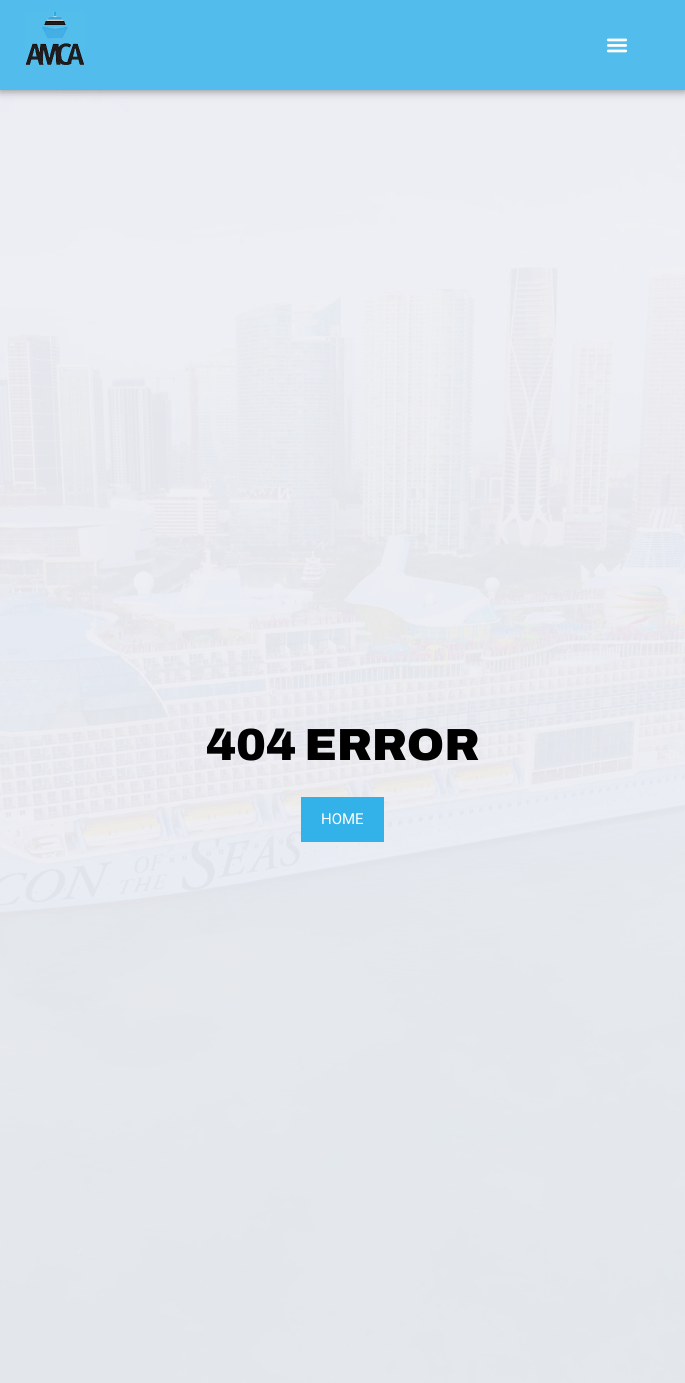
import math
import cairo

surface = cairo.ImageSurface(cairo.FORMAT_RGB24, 685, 1383)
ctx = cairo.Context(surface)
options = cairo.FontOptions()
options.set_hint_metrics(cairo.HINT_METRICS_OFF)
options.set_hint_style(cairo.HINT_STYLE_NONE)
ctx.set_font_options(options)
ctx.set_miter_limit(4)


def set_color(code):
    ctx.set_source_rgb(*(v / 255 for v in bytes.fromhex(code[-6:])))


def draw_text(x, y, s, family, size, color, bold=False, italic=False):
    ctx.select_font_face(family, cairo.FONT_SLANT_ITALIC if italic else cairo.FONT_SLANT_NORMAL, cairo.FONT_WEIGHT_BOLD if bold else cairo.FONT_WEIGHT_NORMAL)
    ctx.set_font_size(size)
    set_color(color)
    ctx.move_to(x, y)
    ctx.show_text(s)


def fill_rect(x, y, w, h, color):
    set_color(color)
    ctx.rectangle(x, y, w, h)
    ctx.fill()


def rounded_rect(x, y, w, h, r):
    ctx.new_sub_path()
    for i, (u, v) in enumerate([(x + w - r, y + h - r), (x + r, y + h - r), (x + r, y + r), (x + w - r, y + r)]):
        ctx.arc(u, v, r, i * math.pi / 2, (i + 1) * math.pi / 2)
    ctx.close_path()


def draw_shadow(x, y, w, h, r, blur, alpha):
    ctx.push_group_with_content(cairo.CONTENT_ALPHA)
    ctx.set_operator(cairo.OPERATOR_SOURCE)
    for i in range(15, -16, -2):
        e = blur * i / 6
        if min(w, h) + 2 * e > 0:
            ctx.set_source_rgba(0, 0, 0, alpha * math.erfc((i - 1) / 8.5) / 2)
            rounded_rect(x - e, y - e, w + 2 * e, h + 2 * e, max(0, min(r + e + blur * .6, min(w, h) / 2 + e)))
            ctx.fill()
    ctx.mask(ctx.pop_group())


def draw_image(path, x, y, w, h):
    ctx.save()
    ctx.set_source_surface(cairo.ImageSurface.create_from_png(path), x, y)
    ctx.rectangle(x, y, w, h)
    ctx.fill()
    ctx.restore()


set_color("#ffffff")
ctx.paint()
draw_image("assets/img3.png", 0, 90, 685, 1293)
set_color("#000000")
draw_shadow(0, 0, 685, 90, 0, 5, 0.5)
fill_rect(0, 0, 685, 90, "#52bdec")
draw_image("assets/img1.png", 25, 11, 60, 54)
draw_image("assets/img2.png", 606, 38, 22, 15)
draw_text(206, 760, "404 ERROR", "Archivo Black", 45, "#000000")
fill_rect(301, 797, 83, 45, "#33b1e9")
draw_text(321, 824, "HOME", "Roboto", 15, "#ffffff")
surface.write_to_png("output.png")
